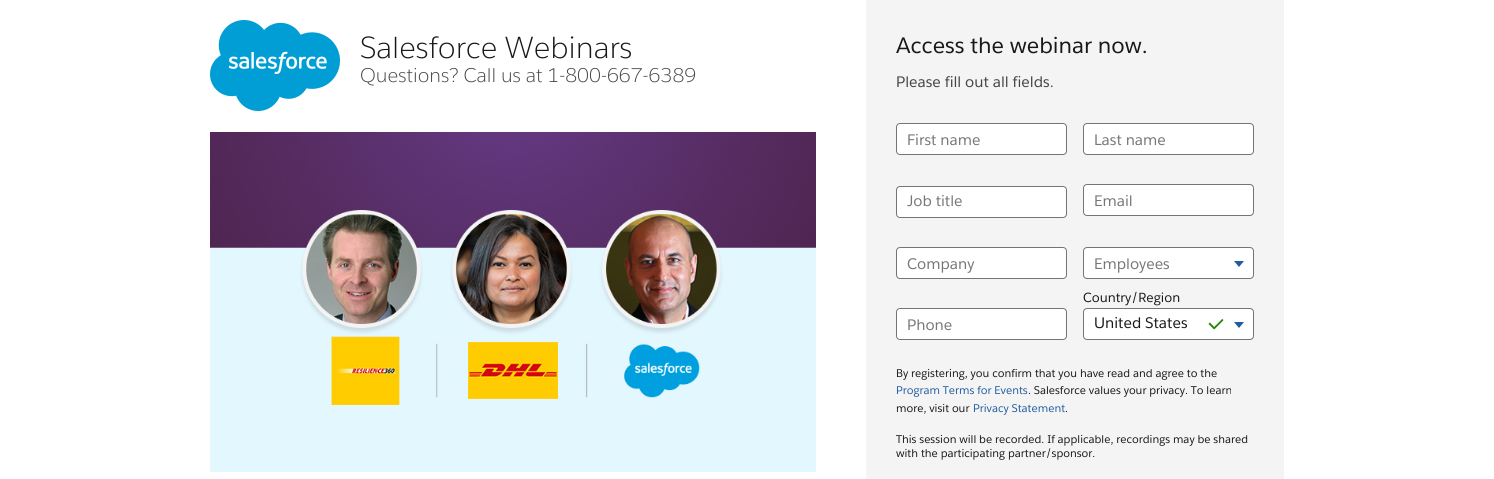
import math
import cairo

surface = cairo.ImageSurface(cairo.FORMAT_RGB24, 1494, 479)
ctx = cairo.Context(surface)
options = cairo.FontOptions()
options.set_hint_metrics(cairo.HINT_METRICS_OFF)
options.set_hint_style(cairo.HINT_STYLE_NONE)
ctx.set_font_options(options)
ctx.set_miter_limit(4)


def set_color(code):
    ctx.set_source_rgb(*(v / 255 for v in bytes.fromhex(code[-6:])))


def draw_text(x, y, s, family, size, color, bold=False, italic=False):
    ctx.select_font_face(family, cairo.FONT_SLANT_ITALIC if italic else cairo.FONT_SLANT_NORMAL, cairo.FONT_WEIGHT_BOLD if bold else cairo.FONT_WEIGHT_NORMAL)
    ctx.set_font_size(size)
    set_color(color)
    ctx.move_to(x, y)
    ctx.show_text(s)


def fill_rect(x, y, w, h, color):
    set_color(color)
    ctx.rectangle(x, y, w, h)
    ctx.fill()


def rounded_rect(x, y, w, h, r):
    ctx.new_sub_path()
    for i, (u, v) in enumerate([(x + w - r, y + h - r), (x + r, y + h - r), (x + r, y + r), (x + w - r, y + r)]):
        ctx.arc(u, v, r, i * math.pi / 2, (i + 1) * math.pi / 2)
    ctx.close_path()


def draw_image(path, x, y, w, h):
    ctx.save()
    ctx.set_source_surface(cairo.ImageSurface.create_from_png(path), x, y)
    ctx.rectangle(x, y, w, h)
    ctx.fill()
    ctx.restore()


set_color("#ffffff")
ctx.paint()
draw_image("assets/img1.png", 210, 20, 130, 91)
draw_text(360, 58, "Salesforce Webinars", "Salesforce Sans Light", 30, "#181818")
draw_text(360, 82, "Questions? Call us at 1-800-667-6389", "Salesforce Sans Light", 19.5, "#444444")
draw_image("assets/img2.png", 210, 132, 606, 340)
fill_rect(866, 0, 418, 479, "#f4f4f4")
draw_text(896, 53, "Access the webinar now.", "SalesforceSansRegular", 22, "#181818")
draw_text(896, 87, "Please fill out all fields.", "SalesforceSansRegular", 15, "#444444")
set_color("#ffffff")
rounded_rect(896.5, 123.5, 170, 31, 3.5)
ctx.fill_preserve()
set_color("#747474")
ctx.set_line_width(1)
ctx.stroke()
draw_text(907, 145, "First name", "SalesforceSansRegular", 15, "#767676")
set_color("#ffffff")
rounded_rect(1083.5, 123.5, 170, 31, 3.5)
ctx.fill_preserve()
set_color("#747474")
ctx.stroke()
draw_text(1094, 145, "Last name", "SalesforceSansRegular", 15, "#767676")
set_color("#ffffff")
rounded_rect(896.5, 186.5, 170, 31, 3.5)
ctx.fill_preserve()
set_color("#747474")
ctx.stroke()
draw_text(907, 206, "Job title", "SalesforceSansRegular", 15, "#767676")
set_color("#ffffff")
rounded_rect(1083.5, 184.5, 170, 31, 3.5)
ctx.fill_preserve()
set_color("#747474")
ctx.stroke()
draw_text(1094, 206, "Email", "SalesforceSansRegular", 15, "#767676")
set_color("#ffffff")
rounded_rect(896.5, 247.5, 170, 31, 3.5)
ctx.fill_preserve()
set_color("#747474")
ctx.stroke()
draw_text(907, 269, "Company", "SalesforceSansRegular", 15, "#767676")
set_color("#ffffff")
rounded_rect(1083.5, 247.5, 170, 31, 3.5)
ctx.fill_preserve()
set_color("#747474")
ctx.stroke()
draw_text(1094, 269, "Employees", "SalesforceSansRegular", 15, "#767676")
set_color("#215ca0")
ctx.new_path()
ctx.move_to(1234, 261)
ctx.line_to(1244, 261)
ctx.line_to(1239, 267)
ctx.close_path()
ctx.fill()
set_color("#ffffff")
rounded_rect(896.5, 308.5, 170, 31, 3.5)
ctx.fill_preserve()
set_color("#747474")
ctx.stroke()
draw_text(907, 330, "Phone", "SalesforceSansRegular", 15, "#767676")
draw_text(1083, 302, "Country/Region", "SalesforceSansRegular", 13, "#181818")
set_color("#ffffff")
rounded_rect(1083.5, 308.5, 170, 31, 3.5)
ctx.fill_preserve()
set_color("#747474")
ctx.stroke()
draw_text(1094, 328, "United States", "SalesforceSansRegular", 15, "#181818")
draw_image("assets/img3.png", 1208, 319, 16, 11)
set_color("#215ca0")
ctx.new_path()
ctx.move_to(1234, 322)
ctx.line_to(1244, 322)
ctx.line_to(1239, 328)
ctx.close_path()
ctx.fill()
draw_text(896, 377, "By registering, you confirm that you have read and agree to the", "SalesforceSansRegular", 11, "#181818")
draw_text(896, 394, "Program Terms for Events", "SalesforceSansRegular", 11, "#215ca0")
draw_text(1028, 394, ". Salesforce values your privacy. To learn", "SalesforceSansRegular", 11, "#181818")
draw_text(896, 412, "more, visit our", "SalesforceSansRegular", 11, "#181818")
draw_text(973, 412, "Privacy Statement", "SalesforceSansRegular", 11, "#215ca0")
draw_text(1065, 412, ".", "SalesforceSansRegular", 11, "#181818")
draw_text(896, 443, "This session will be recorded. If applicable, recordings may be shared", "SalesforceSansRegular", 11, "#181818")
draw_text(896, 457, "with the participating partner/sponsor.", "SalesforceSansRegular", 11, "#181818")
surface.write_to_png("output.png")
